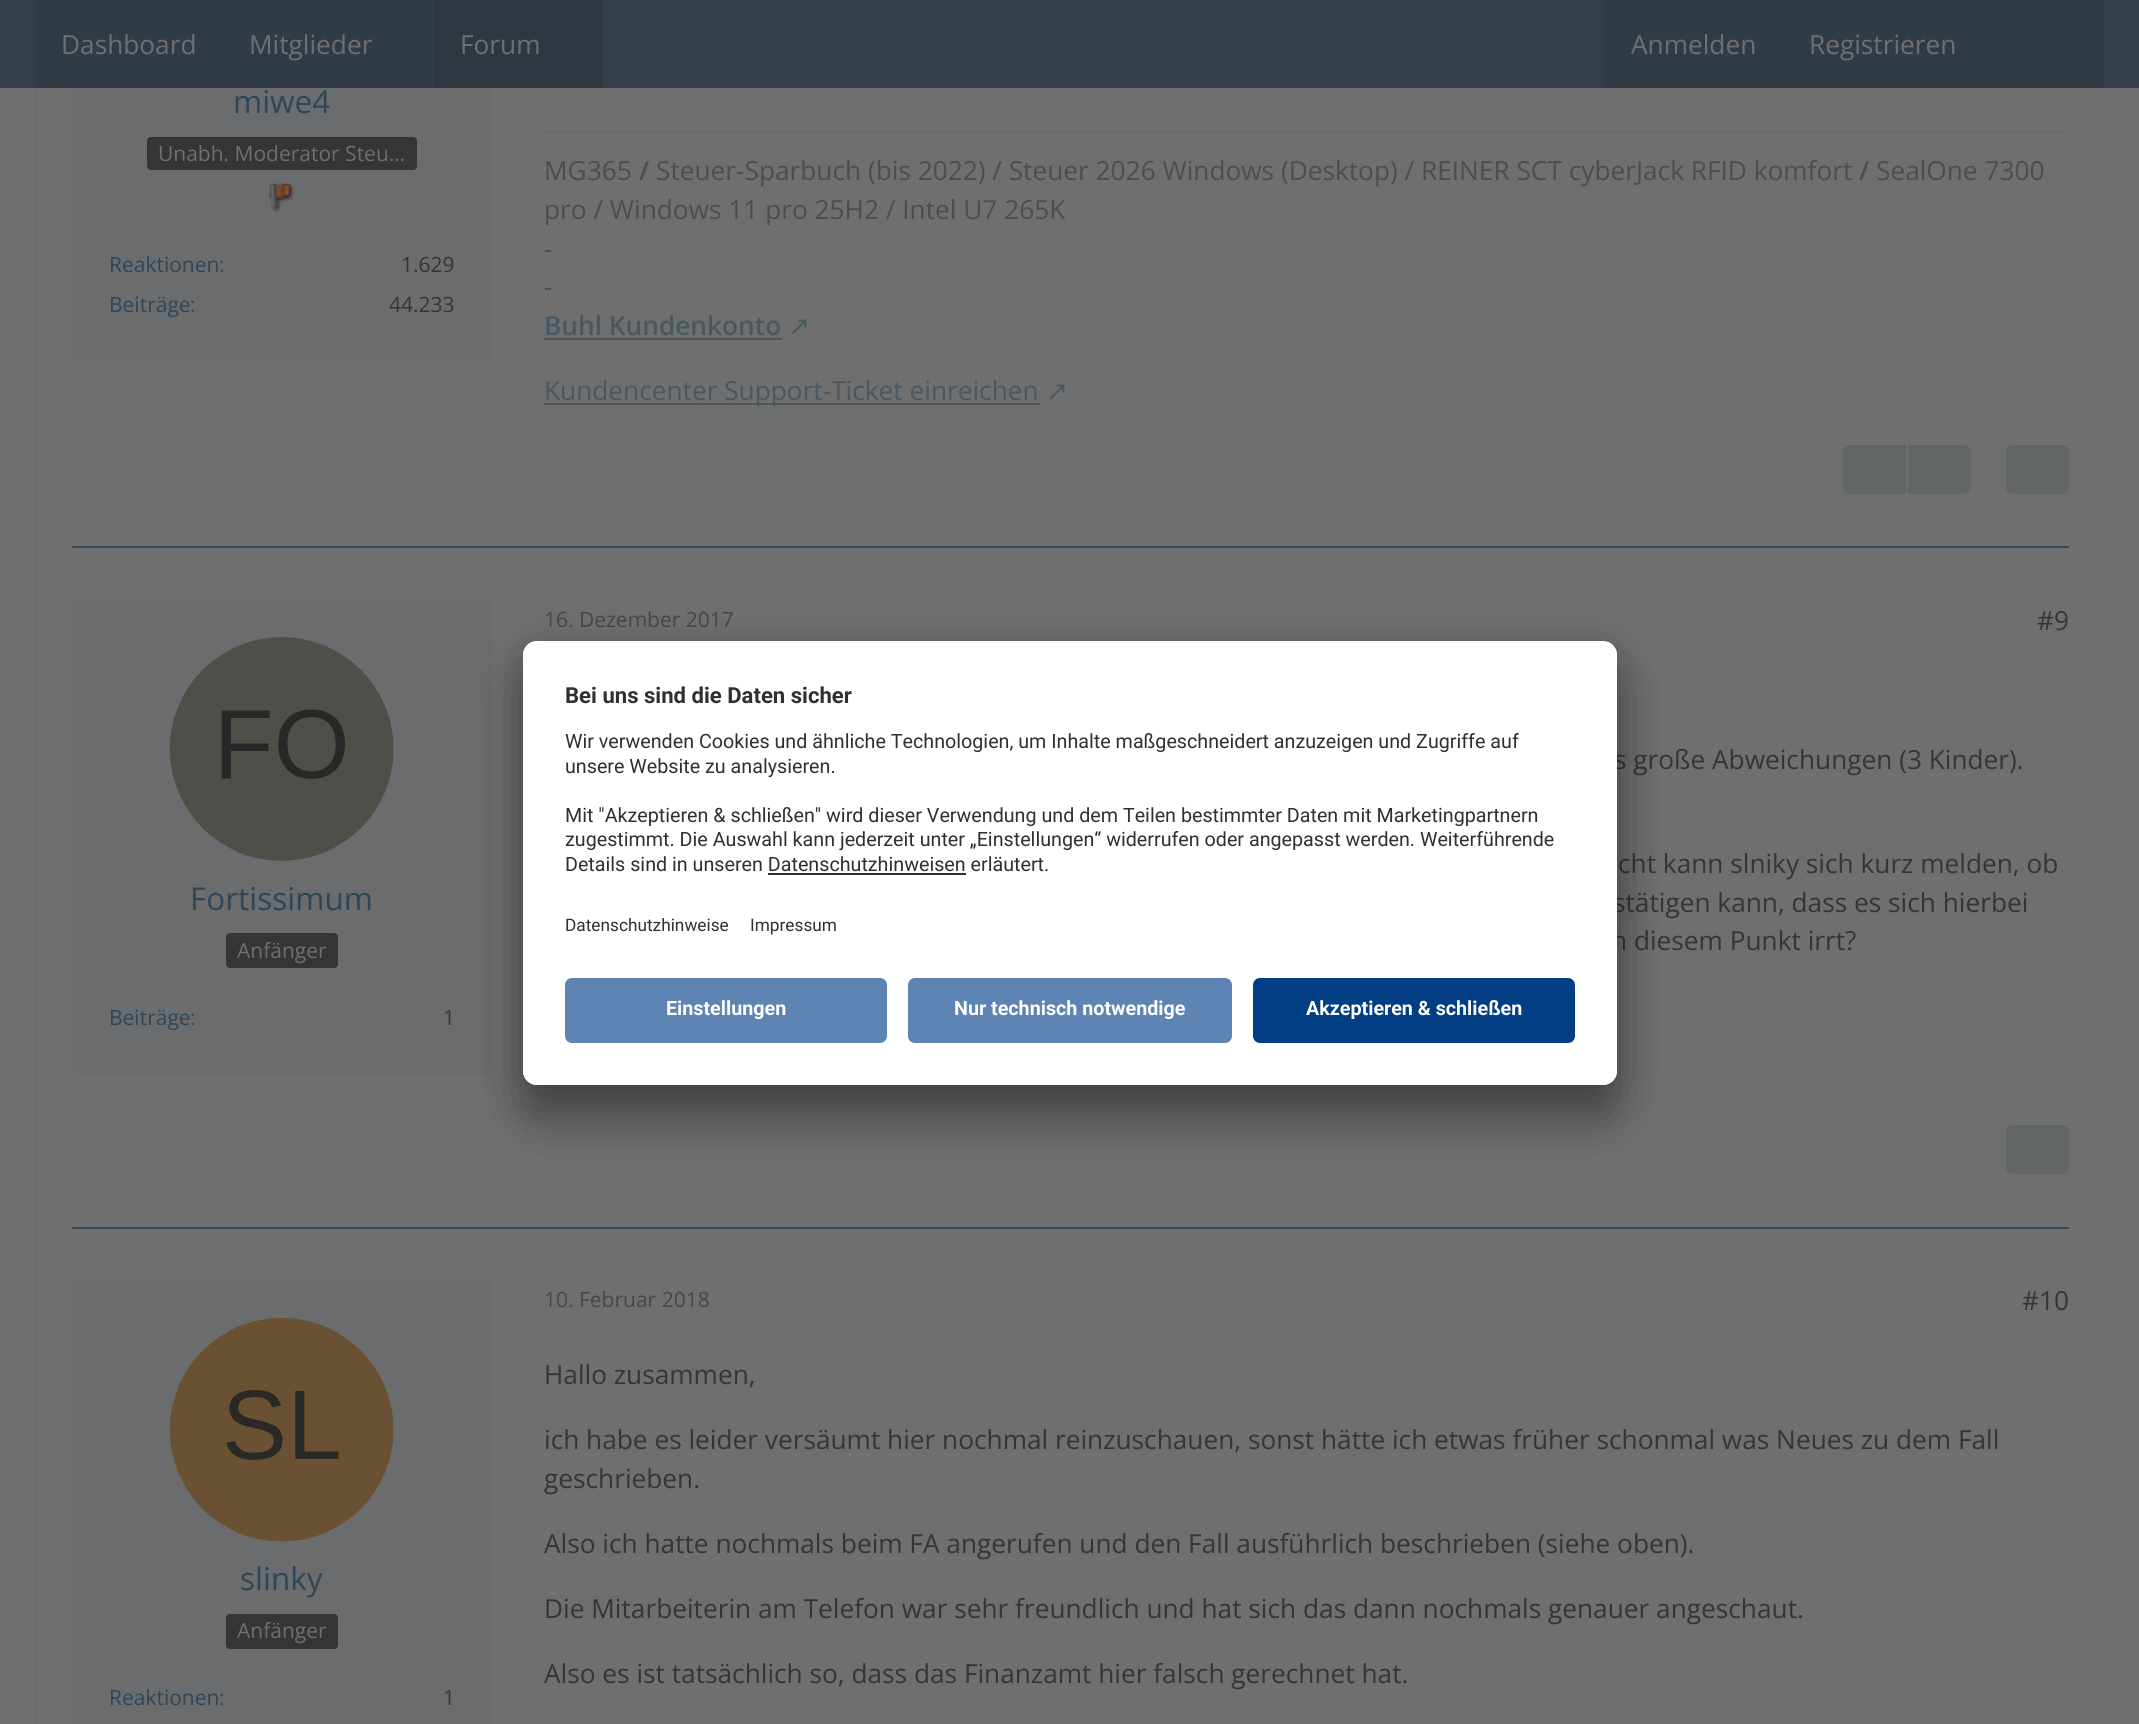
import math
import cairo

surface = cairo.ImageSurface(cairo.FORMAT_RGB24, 2139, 1724)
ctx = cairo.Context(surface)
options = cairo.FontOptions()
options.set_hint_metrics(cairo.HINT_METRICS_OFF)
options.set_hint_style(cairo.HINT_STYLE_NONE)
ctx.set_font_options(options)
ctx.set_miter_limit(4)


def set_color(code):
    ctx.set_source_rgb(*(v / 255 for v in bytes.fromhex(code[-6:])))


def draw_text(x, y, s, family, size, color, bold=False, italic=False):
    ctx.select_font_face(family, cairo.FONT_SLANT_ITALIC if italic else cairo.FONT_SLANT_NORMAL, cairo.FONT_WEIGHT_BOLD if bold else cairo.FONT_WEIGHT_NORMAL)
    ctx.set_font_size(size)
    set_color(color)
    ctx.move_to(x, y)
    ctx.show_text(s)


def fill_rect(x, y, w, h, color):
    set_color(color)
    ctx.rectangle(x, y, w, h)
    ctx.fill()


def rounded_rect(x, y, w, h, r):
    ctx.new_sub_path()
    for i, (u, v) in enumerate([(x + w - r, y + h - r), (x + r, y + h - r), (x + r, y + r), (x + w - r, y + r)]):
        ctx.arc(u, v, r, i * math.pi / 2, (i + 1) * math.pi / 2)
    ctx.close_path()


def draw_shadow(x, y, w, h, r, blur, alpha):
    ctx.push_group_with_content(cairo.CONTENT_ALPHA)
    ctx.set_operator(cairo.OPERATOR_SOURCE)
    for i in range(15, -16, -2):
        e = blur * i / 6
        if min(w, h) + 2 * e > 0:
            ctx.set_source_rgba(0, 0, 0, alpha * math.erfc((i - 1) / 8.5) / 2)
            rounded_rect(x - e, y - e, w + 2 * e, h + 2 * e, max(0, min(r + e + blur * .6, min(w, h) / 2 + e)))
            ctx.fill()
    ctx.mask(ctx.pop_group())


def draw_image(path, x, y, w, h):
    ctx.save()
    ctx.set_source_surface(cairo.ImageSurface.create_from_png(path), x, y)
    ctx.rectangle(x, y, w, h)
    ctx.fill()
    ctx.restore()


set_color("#6f6f6f")
ctx.paint()
ctx.rectangle(36, -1, 2068, 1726)
set_color("#6b6c6e")
ctx.stroke()
rounded_rect(72, -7, 420, 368, 7)
ctx.fill()
fill_rect(0, 0, 2139, 88, "#333f4b")
fill_rect(35, 0, 399, 88, "#313b46")
draw_text(61, 54, "Dashboard", "Open Sans", 26.25, "#6f6f6f")
draw_text(249, 54, "Mitglieder", "Open Sans", 26.25, "#6f6f6f")
fill_rect(434, 0, 168, 88, "#2f3840")
draw_text(460, 54, "Forum", "Open Sans", 26.25, "#6f6f6f")
fill_rect(1605, 0, 500, 88, "#313b46")
draw_text(1631, 54, "Anmelden", "Open Sans", 26.25, "#6f6f6f")
draw_text(1809, 54, "Registrieren", "Open Sans", 26.25, "#6f6f6f")
fill_rect(72, 546, 1997, 2, "#374858")
draw_text(233, 113, "miwe4", "Open Sans", 31.5, "#2f4656")
set_color("#353536")
rounded_rect(147, 137, 270, 33, 4)
ctx.fill()
draw_text(158, 161, "Unabh. Moderator Steu…", "Open Sans", 21, "#6f6f6f")
draw_image("assets/img1.png", 269, 183, 26, 29)
draw_text(109, 272, "Reaktionen", "Open Sans", 21, "#2f4656")
draw_text(219, 272, ":", "Open Sans", 21, "#464748")
draw_text(401, 272, "1.629", "Open Sans", 21, "#353536")
draw_text(109, 312, "Beiträge", "Open Sans", 21, "#2f4656")
draw_text(190, 312, ":", "Open Sans", 21, "#464748")
draw_text(389, 312, "44.233", "Open Sans", 21, "#353536")
fill_rect(544, 131, 1525, 2, "#6b6b6b")
draw_text(544, 180, "MG365", "Open Sans", 26.25, "#4d4d4d")
draw_text(639, 180, "/", "Open Sans SemiBold", 26.25, "#4d4d4d")
draw_text(656, 180, "Steuer-Sparbuch (bis 2022) / Steuer 2026 Windows (Desktop) / REINER SCT cyberJack RFID komfort", "Open Sans", 26.25, "#4d4d4d")
draw_text(1859, 180, "/", "Open Sans SemiBold", 26.25, "#4d4d4d")
draw_text(1876, 180, "SealOne 7300", "Open Sans", 26.25, "#4d4d4d")
draw_text(544, 219, "pro / Windows 11 pro 25H2 / Intel U7 265K", "Open Sans", 26.25, "#4d4d4d")
draw_text(544, 258, "-", "Open Sans", 26.25, "#4d4d4d")
draw_text(544, 296, "-", "Open Sans", 26.25, "#4d4d4d")
draw_text(544, 335, "Buhl Kundenkonto", "Open Sans SemiBold", 26.25, "#495760")
fill_rect(544, 338, 238, 2, "#495760")
draw_text(788, 335, "↗", "DejaVu Sans", 26.25, "#495760")
fill_rect(544, 403, 496, 2, "#495760")
draw_text(544, 400, "Kundencenter Support-Ticket einreichen", "Open Sans", 26.25, "#495760")
draw_text(1046, 400, "↗", "DejaVu Sans", 26.25, "#495760")
set_color("#626566")
ctx.new_path()
ctx.move_to(1850, 445)
ctx.line_to(1906, 445)
ctx.line_to(1906, 494)
ctx.line_to(1850, 494)
ctx.curve_to(1846, 494, 1843, 491, 1843, 487)
ctx.line_to(1843, 452)
ctx.curve_to(1843, 448, 1846, 445, 1850, 445)
ctx.close_path()
ctx.fill()
ctx.new_path()
ctx.move_to(1908, 445)
ctx.line_to(1964, 445)
ctx.curve_to(1968, 445, 1971, 448, 1971, 452)
ctx.line_to(1971, 487)
ctx.curve_to(1971, 491, 1968, 494, 1964, 494)
ctx.line_to(1908, 494)
ctx.close_path()
ctx.fill()
rounded_rect(2006, 445, 63, 49, 7)
ctx.fill()
fill_rect(72, 1227, 1997, 2, "#374858")
set_color("#6b6c6e")
rounded_rect(72, 600, 420, 475, 7)
ctx.fill()
set_color("#707070")
ctx.arc(282, 749, 112, 0, 2 * math.pi)
ctx.fill()
draw_image("assets/img2.png", 170, 637, 224, 224)
draw_text(190, 910, "Fortissimum", "Open Sans", 31.5, "#2f4656")
set_color("#353536")
rounded_rect(226, 933, 112, 35, 4)
ctx.fill()
draw_text(237, 958, "Anfänger", "Open Sans", 21, "#6f6f6f")
draw_text(109, 1025, "Beiträge", "Open Sans", 21, "#2f4656")
draw_text(190, 1025, ":", "Open Sans", 21, "#464748")
draw_text(443, 1025, "1", "Open Sans", 21, "#353536")
draw_text(544, 627, "16. Dezember 2017", "Open Sans", 21, "#464748")
draw_text(2037, 630, "#9", "Open Sans", 26.25, "#353536")
draw_text(1614, 769, "s große Abweichungen (3 Kinder).", "Open Sans", 26.25, "#353536")
draw_text(1618, 873, "cht kann slniky sich kurz melden, ob", "Open Sans", 26.25, "#353536")
draw_text(1613, 912, "stätigen kann, dass es sich hierbei", "Open Sans", 26.25, "#353536")
draw_text(1611, 950, "n diesem Punkt irrt?", "Open Sans", 26.25, "#353536")
set_color("#626566")
rounded_rect(2006, 1125, 63, 49, 7)
ctx.fill()
set_color("#6b6c6e")
rounded_rect(72, 1281, 420, 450, 7)
ctx.fill()
set_color("#707070")
ctx.arc(282, 1430, 112, 0, 2 * math.pi)
ctx.fill()
draw_image("assets/img3.png", 170, 1318, 224, 224)
draw_text(240, 1590, "slinky", "Open Sans", 31.5, "#2f4656")
set_color("#353536")
rounded_rect(226, 1614, 112, 35, 4)
ctx.fill()
draw_text(237, 1638, "Anfänger", "Open Sans", 21, "#6f6f6f")
draw_text(109, 1705, "Reaktionen", "Open Sans", 21, "#2f4656")
draw_text(219, 1705, ":", "Open Sans", 21, "#464748")
draw_text(443, 1705, "1", "Open Sans", 21, "#353536")
draw_text(544, 1307, "10. Februar 2018", "Open Sans", 21, "#464748")
draw_text(2022, 1310, "#10", "Open Sans", 26.25, "#353536")
draw_text(544, 1384, "Hallo zusammen,", "Open Sans", 26.25, "#353536")
draw_text(544, 1449, "ich habe es leider versäumt hier nochmal reinzuschauen, sonst hätte ich etwas früher schonmal was Neues zu dem Fall", "Open Sans", 26.25, "#353536")
draw_text(544, 1488, "geschrieben.", "Open Sans", 26.25, "#353536")
draw_text(544, 1553, "Also ich hatte nochmals beim FA angerufen und den Fall ausführlich beschrieben (siehe oben).", "Open Sans", 26.25, "#353536")
draw_text(544, 1618, "Die Mitarbeiterin am Telefon war sehr freundlich und hat sich das dann nochmals genauer angeschaut.", "Open Sans", 26.25, "#353536")
draw_text(544, 1683, "Also es ist tatsächlich so, dass das Finanzamt hier falsch gerechnet hat.", "Open Sans", 26.25, "#353536")
set_color("#000000")
draw_shadow(523, 676, 1094, 444, 14, 24.5, 0.3)
draw_shadow(523, 649, 1094, 445, 14, 23, 0.22)
set_color("#ffffff")
rounded_rect(523, 641, 1094, 444, 14)
ctx.fill()
ctx.save()
rounded_rect(523, 641, 1094, 444, 14)
ctx.clip()
ctx.new_path()
ctx.move_to(537, 641)
ctx.line_to(1603, 641)
ctx.curve_to(1610.5, 641, 1617, 647.5, 1617, 655)
ctx.line_to(1617, 964)
ctx.line_to(523, 964)
ctx.line_to(523, 655)
ctx.curve_to(523, 647.5, 529.5, 641, 537, 641)
ctx.close_path()
ctx.clip()
fill_rect(523, 642, 1094, 322, "#ffffff")
ctx.restore()
draw_text(565, 703, "Bei uns sind die Daten sicher", "Roboto", 22.1, "#303030", bold=True)
draw_text(565, 748, "Wir verwenden Cookies und ähnliche Technologien, um Inhalte maßgeschneidert anzuzeigen und Zugriffe auf", "Roboto", 19.7, "#303030")
draw_text(565, 773, "unsere Website zu analysieren.", "Roboto", 19.7, "#303030")
draw_text(565, 822, "Mit \"Akzeptieren & schließen\" wird dieser Verwendung und dem Teilen bestimmter Daten mit Marketingpartnern", "Roboto", 19.7, "#303030")
draw_text(565, 846, "zugestimmt. Die Auswahl kann jederzeit unter „Einstellungen“ widerrufen oder angepasst werden. Weiterführende", "Roboto", 19.7, "#303030")
draw_text(565, 871, "Details sind in unseren Datenschutzhinweisen erläutert.", "Roboto", 19.7, "#303030")
fill_rect(768, 873, 198, 2, "#303030")
draw_text(565, 931, "Datenschutzhinweise", "Roboto", 17.25, "#303030")
draw_text(750, 931, "Impressum", "Roboto", 17.25, "#303030")
set_color("#ffffff")
ctx.new_path()
ctx.move_to(523, 964)
ctx.line_to(1617, 964)
ctx.line_to(1617, 1071)
ctx.curve_to(1617, 1078.5, 1610.5, 1085, 1603, 1085)
ctx.line_to(537, 1085)
ctx.curve_to(529.5, 1085, 523, 1078.5, 523, 1071)
ctx.close_path()
ctx.fill()
set_color("#5d84b3")
rounded_rect(565, 978, 322, 65, 7)
ctx.fill()
draw_text(666, 1015, "Einstellungen", "Roboto", 19.7, "#ffffff", bold=True)
set_color("#5d84b3")
rounded_rect(908, 978, 324, 65, 7)
ctx.fill()
draw_text(954, 1015, "Nur technisch notwendige", "Roboto", 19.7, "#ffffff", bold=True)
set_color("#023e84")
rounded_rect(1253, 978, 322, 65, 7)
ctx.fill()
draw_text(1306, 1015, "Akzeptieren & schließen", "Roboto", 19.7, "#ffffff", bold=True)
surface.write_to_png("output.png")
